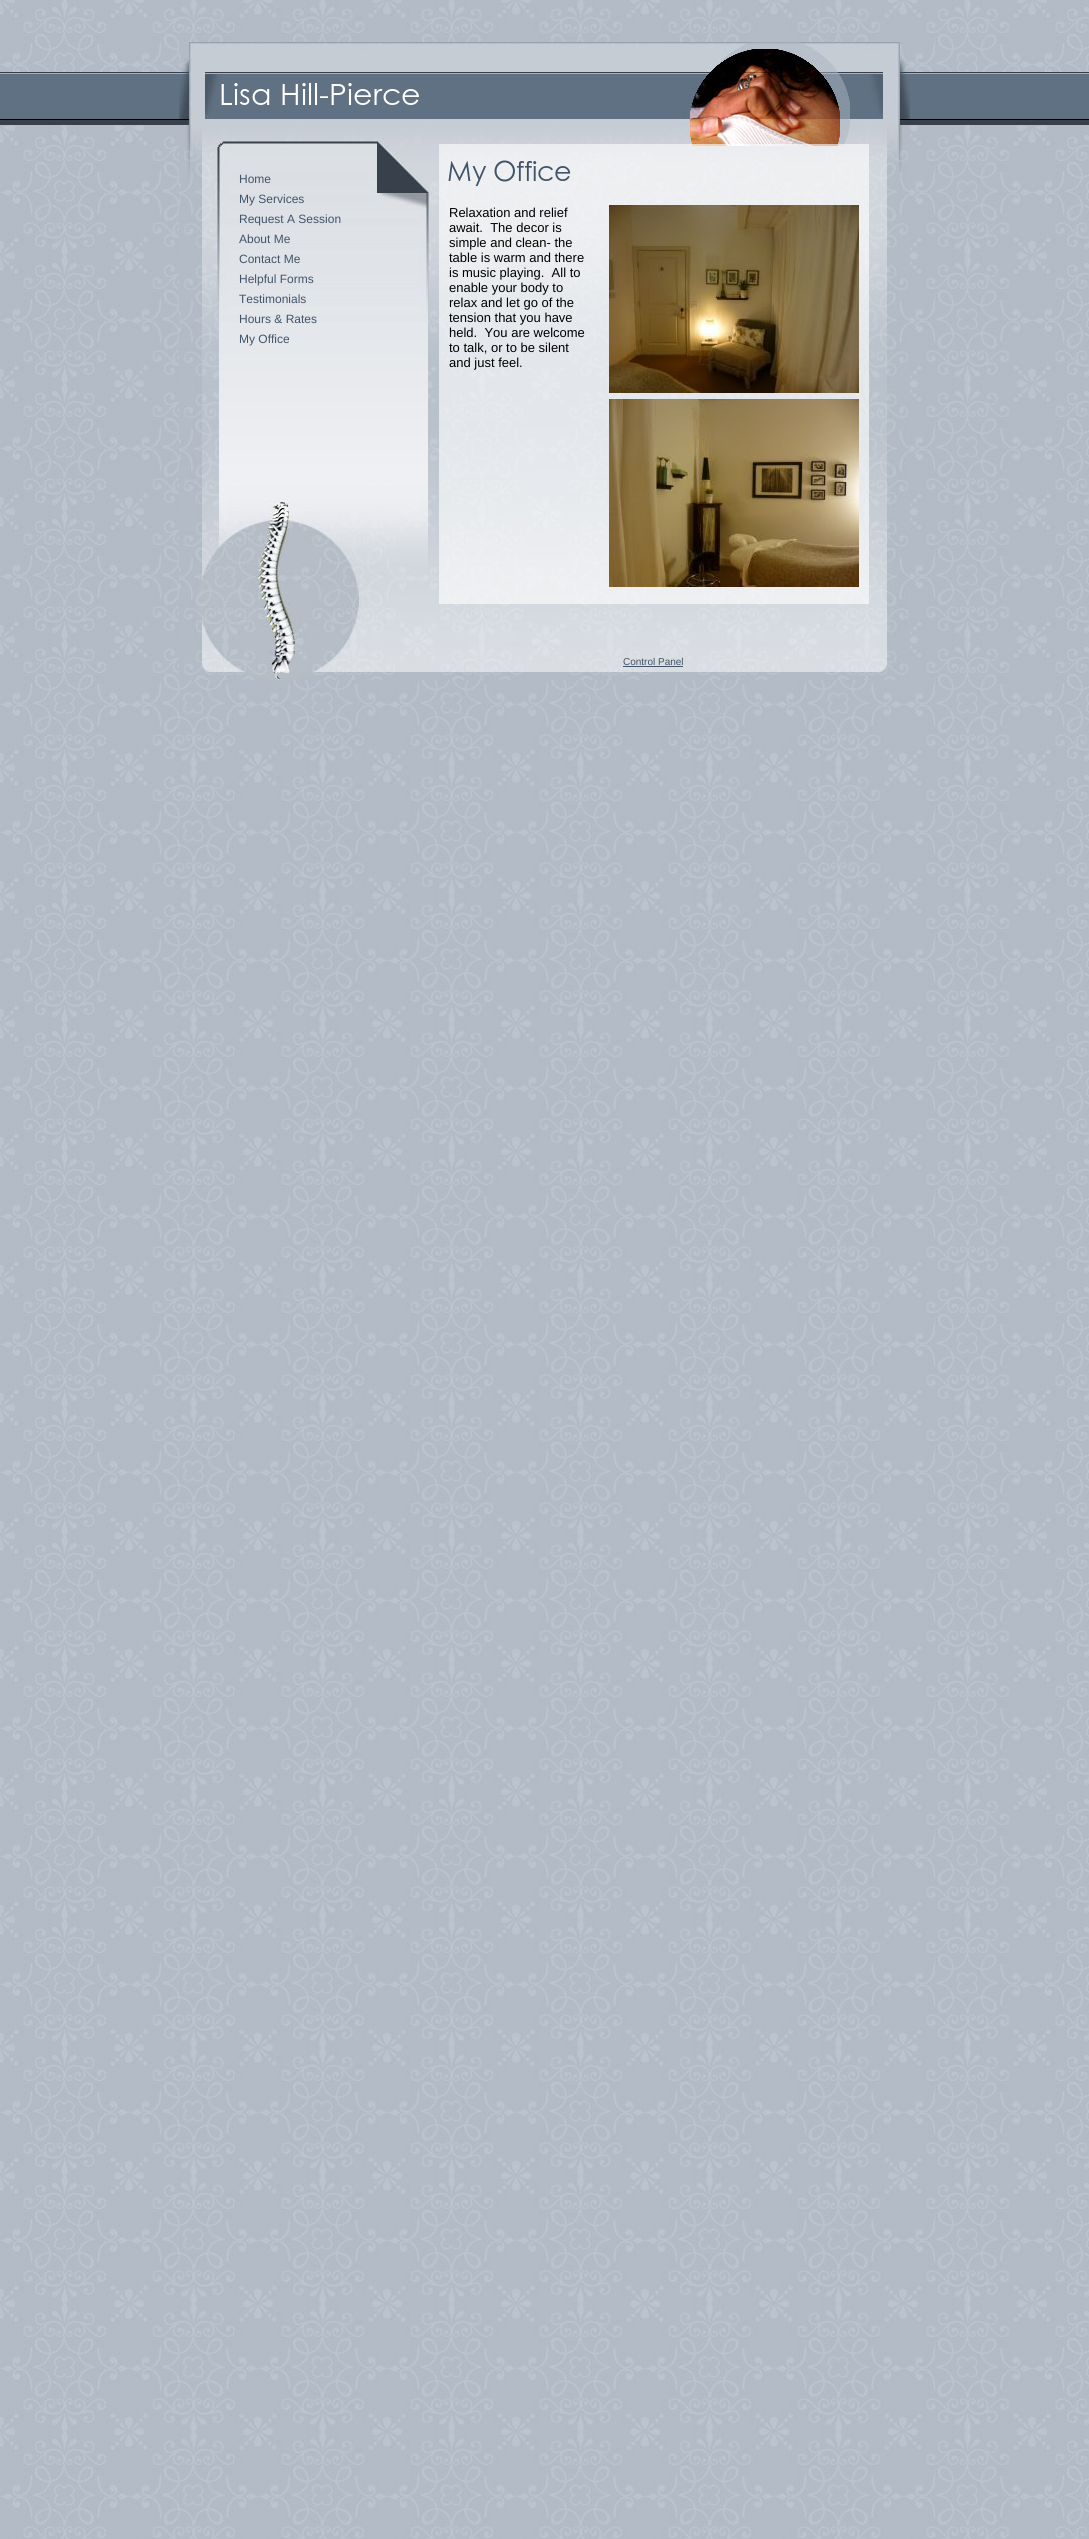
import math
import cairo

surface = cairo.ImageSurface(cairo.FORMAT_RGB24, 1089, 2539)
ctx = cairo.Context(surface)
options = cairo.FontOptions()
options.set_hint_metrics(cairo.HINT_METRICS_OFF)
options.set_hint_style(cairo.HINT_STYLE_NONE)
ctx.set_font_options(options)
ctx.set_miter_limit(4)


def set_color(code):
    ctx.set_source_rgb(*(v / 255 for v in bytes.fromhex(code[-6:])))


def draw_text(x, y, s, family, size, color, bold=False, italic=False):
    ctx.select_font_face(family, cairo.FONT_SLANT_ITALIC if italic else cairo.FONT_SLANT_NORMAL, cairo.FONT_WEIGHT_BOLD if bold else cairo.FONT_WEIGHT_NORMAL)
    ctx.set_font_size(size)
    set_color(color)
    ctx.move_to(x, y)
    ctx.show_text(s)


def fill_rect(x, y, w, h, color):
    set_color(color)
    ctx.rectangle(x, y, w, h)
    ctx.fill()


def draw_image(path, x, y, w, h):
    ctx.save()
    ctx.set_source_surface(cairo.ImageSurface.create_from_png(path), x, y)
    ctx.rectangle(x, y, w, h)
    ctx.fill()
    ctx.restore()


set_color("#ffffff")
ctx.paint()
draw_image("assets/img1.png", 0, 0, 1089, 2539)
draw_image("assets/img2.png", 0, 72, 1089, 53)
draw_image("assets/img3.png", 179, 42, 731, 97)
draw_image("assets/img4.png", 221, 83, 198, 22)
draw_image("assets/img5.png", 179, 457, 731, 198)
draw_image("assets/img6.png", 179, 139, 731, 318)
draw_text(239, 183, "Home", "Liberation Sans", 12, "#425469")
draw_text(239, 203, "My Services", "Liberation Sans", 12, "#425469")
draw_text(239, 223, "Request A Session", "Liberation Sans", 12, "#425469")
draw_text(239, 243, "About Me", "Liberation Sans", 12, "#425469")
draw_text(239, 263, "Contact Me", "Liberation Sans", 12, "#425469")
draw_text(239, 283, "Helpful Forms", "Liberation Sans", 12, "#425469")
draw_text(239, 303, "Testimonials", "Liberation Sans", 12, "#425469")
draw_text(239, 323, "Hours & Rates", "Liberation Sans", 12, "#425469")
draw_text(239, 343, "My Office", "Liberation Sans", 12, "#425469")
ctx.set_source_rgba(1, 1, 1, 0.6)
ctx.rectangle(439, 144, 430, 460)
ctx.fill()
draw_image("assets/img7.png", 448, 160, 123, 26)
draw_text(449, 217, "Relaxation and relief", "Liberation Sans", 13, "#000000")
draw_image("assets/img8.png", 609, 205, 250, 188)
draw_text(449, 232, "await.  The decor is", "Liberation Sans", 13, "#000000")
draw_text(449, 247, "simple and clean- the", "Liberation Sans", 13, "#000000")
draw_text(449, 262, "table is warm and there", "Liberation Sans", 13, "#000000")
draw_text(449, 277, "is music playing.  All to", "Liberation Sans", 13, "#000000")
draw_text(449, 292, "enable your body to", "Liberation Sans", 13, "#000000")
draw_text(449, 307, "relax and let go of the", "Liberation Sans", 13, "#000000")
draw_text(449, 322, "tension that you have", "Liberation Sans", 13, "#000000")
draw_text(449, 337, "held.  You are welcome", "Liberation Sans", 13, "#000000")
draw_text(449, 352, "to talk, or to be silent", "Liberation Sans", 13, "#000000")
draw_text(449, 367, "and just feel.", "Liberation Sans", 13, "#000000")
draw_image("assets/img9.png", 609, 399, 250, 188)
draw_image("assets/img10.png", 179, 655, 729, 25)
draw_text(623, 665, "Control Panel", "Liberation Sans", 10, "#425469")
fill_rect(623, 666, 60, 1, "#425469")
surface.write_to_png("output.png")
